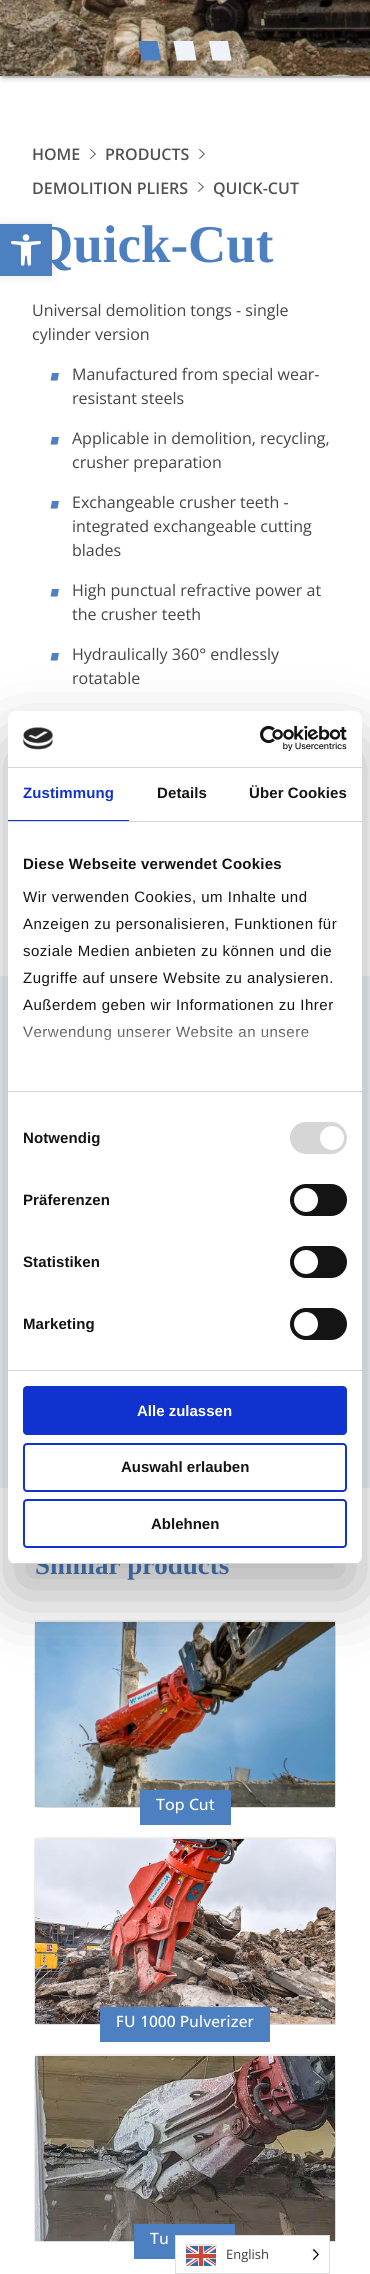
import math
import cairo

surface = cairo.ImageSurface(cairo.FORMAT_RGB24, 370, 2274)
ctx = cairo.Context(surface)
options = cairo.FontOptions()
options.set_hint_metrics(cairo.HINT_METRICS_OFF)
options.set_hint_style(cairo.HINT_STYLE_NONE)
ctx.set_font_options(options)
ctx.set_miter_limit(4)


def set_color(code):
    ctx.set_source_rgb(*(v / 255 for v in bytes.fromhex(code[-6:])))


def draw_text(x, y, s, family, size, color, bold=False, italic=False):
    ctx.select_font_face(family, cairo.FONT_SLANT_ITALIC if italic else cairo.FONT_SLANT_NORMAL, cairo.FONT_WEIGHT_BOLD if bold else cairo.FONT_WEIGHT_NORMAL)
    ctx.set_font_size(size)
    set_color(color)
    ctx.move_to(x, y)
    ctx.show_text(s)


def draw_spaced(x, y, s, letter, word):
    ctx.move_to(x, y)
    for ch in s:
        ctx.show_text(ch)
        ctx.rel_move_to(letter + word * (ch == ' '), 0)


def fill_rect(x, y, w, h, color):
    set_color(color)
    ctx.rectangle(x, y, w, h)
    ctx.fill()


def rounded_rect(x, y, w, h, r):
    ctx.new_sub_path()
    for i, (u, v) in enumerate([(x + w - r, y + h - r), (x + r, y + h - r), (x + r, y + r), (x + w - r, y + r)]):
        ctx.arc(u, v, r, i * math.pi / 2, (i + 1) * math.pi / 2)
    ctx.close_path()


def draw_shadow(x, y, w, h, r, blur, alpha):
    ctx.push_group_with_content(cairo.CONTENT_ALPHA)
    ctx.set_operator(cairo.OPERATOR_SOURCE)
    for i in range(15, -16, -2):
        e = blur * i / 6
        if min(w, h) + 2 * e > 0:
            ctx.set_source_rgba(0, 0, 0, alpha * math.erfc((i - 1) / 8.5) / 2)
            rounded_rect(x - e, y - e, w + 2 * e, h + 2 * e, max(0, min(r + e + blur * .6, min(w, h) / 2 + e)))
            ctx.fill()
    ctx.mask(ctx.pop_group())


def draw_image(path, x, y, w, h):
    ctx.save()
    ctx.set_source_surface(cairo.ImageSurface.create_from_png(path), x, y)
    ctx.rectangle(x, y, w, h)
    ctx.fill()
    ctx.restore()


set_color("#ffffff")
ctx.paint()
set_color("#000000")
draw_shadow(2, -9, 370, 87, 0, 3, 0.25)
draw_image("assets/img1.png", 0, 0, 370, 78)
draw_image("assets/img2.png", 369, 2, 1, 76)
set_color("#4d80c1")
ctx.new_path()
ctx.move_to(138.5, 41)
ctx.line_to(157.5, 41)
ctx.line_to(161, 60.5)
ctx.line_to(142, 60.5)
ctx.close_path()
ctx.fill()
set_color("#edf3f9")
ctx.new_path()
ctx.move_to(173.5, 41)
ctx.line_to(193, 41)
ctx.line_to(196.5, 60.5)
ctx.line_to(177, 60.5)
ctx.close_path()
ctx.move_to(209, 41)
ctx.line_to(228, 41)
ctx.line_to(231.5, 60.5)
ctx.line_to(212.5, 60.5)
ctx.close_path()
ctx.fill()
draw_text(32, 160, "HOME", "Open Sans SemiBold", 16, "#525252")
draw_image("assets/img3.png", 90, 149, 6, 10)
draw_text(105, 160, "PRODUCTS", "Open Sans SemiBold", 16, "#525252")
draw_image("assets/img3.png", 199, 149, 6, 10)
draw_text(32, 194, "DEMOLITION PLIERS", "Open Sans SemiBold", 16, "#525252")
draw_image("assets/img3.png", 198, 182, 6, 10)
draw_text(213, 194, "QUICK-CUT", "Open Sans SemiBold", 16, "#525252")
draw_text(32, 262, "Quick-Cut", "Liberation Serif", 53, "#4d80c1", bold=True)
draw_text(32, 316, "Universal demolition tongs - single", "Open Sans", 16, "#444444")
draw_text(32, 340, "cylinder version", "Open Sans", 16, "#444444")
set_color("#4d80c1")
ctx.new_path()
ctx.move_to(52, 373)
ctx.line_to(59, 373)
ctx.line_to(57.5, 380.5)
ctx.line_to(50.5, 380.5)
ctx.close_path()
ctx.fill()
draw_text(72, 380, "Manufactured from special wear-", "Open Sans", 16, "#444444")
draw_text(72, 404, "resistant steels", "Open Sans", 16, "#444444")
set_color("#4d80c1")
ctx.new_path()
ctx.move_to(52, 437)
ctx.line_to(59, 437)
ctx.line_to(57.5, 444.5)
ctx.line_to(50.5, 444.5)
ctx.close_path()
ctx.fill()
draw_text(72, 444, "Applicable in demolition, recycling,", "Open Sans", 16, "#444444")
draw_text(72, 468, "crusher preparation", "Open Sans", 16, "#444444")
set_color("#4d80c1")
ctx.new_path()
ctx.move_to(52, 501)
ctx.line_to(59, 501)
ctx.line_to(57.5, 508.5)
ctx.line_to(50.5, 508.5)
ctx.close_path()
ctx.fill()
draw_text(72, 508, "Exchangeable crusher teeth -", "Open Sans", 16, "#444444")
draw_text(72, 532, "integrated exchangeable cutting", "Open Sans", 16, "#444444")
draw_text(72, 556, "blades", "Open Sans", 16, "#444444")
set_color("#4d80c1")
ctx.new_path()
ctx.move_to(52, 589)
ctx.line_to(59, 589)
ctx.line_to(57.5, 596.5)
ctx.line_to(50.5, 596.5)
ctx.close_path()
ctx.fill()
draw_text(72, 596, "High punctual refractive power at", "Open Sans", 16, "#444444")
draw_text(72, 620, "the crusher teeth", "Open Sans", 16, "#444444")
set_color("#4d80c1")
ctx.new_path()
ctx.move_to(52, 653)
ctx.line_to(59, 653)
ctx.line_to(57.5, 660.5)
ctx.line_to(50.5, 660.5)
ctx.close_path()
ctx.fill()
draw_text(72, 660, "Hydraulically 360° endlessly", "Open Sans", 16, "#444444")
draw_text(72, 684, "rotatable", "Open Sans", 16, "#444444")
fill_rect(0, 976, 370, 512, "#edf3f9")
draw_text(35, 1574, "Similar products", "Liberation Serif", 27, "#4d80c1", bold=True)
draw_image("assets/img4.png", 34, 1620, 302, 188)
fill_rect(140, 1790, 91, 35, "#4d80c1")
draw_text(156, 1810, "Top Cut", "Frutiger", 16, "#ffffff")
draw_image("assets/img5.png", 34, 1837, 302, 188)
fill_rect(100, 2007, 170, 35, "#4d80c1")
draw_text(116, 2027, "FU 1000 Pulverizer", "Frutiger", 16, "#ffffff")
draw_image("assets/img6.png", 34, 2054, 302, 188)
fill_rect(134, 2224, 101, 35, "#4d80c1")
draw_text(150, 2244, "Tu", "Frutiger", 16, "#ffffff")
set_color("#000000")
draw_shadow(0, 224, 52, 52, 0, 5, 0.1)
fill_rect(0, 224, 52, 52, "#4d80c1")
draw_image("assets/img7.png", 11, 234, 30, 32)
set_color("#000000")
draw_shadow(8, 743, 354, 853, 8, 34, 0.3)
set_color("#ffffff")
rounded_rect(8, 711, 354, 853, 8)
ctx.fill()
fill_rect(8, 767, 354, 1, "#d6d6d6")
draw_image("assets/img8.png", 23, 727, 30, 23)
draw_image("assets/img9.png", 260, 726, 87, 25)
fill_rect(8, 821, 354, 1, "#d6d6d6")
fill_rect(8, 820, 121, 1, "#1032cf")
ctx.select_font_face("Liberation Sans", cairo.FONT_SLANT_NORMAL, cairo.FONT_WEIGHT_BOLD)
ctx.set_font_size(15)
draw_spaced(23, 798, "Zustimmung", 0.1, 0)
set_color("#141414")
draw_spaced(157, 798, "Details", 0.1, 0)
draw_spaced(249, 798, "Über Cookies", 0.1, 0)
fill_rect(8, 1091, 354, 1, "#d6d6d6")
set_color("#141414")
draw_spaced(23, 869, "Diese Webseite verwendet Cookies", 0.25, 0)
ctx.select_font_face("Liberation Sans")
draw_spaced(23, 902, "Wir verwenden Cookies, um Inhalte und", 0.5, 0)
draw_spaced(23, 929, "Anzeigen zu personalisieren, Funktionen für", 0.5, 0)
draw_spaced(23, 956, "soziale Medien anbieten zu können und die", 0.5, 0)
draw_spaced(23, 983, "Zugriffe auf unsere Website zu analysieren.", 0.5, 0)
draw_spaced(23, 1010, "Außerdem geben wir Informationen zu Ihrer", 0.5, 0)
draw_spaced(23, 1037, "Verwendung unserer Website an unsere", 0.5, 0)
gradient = cairo.LinearGradient(179, 1091, 179, 1016)
gradient.add_color_stop_rgba(0, 1, 1, 1, 1)
gradient.add_color_stop_rgba(0.5, 1, 1, 1, 0.8)
gradient.add_color_stop_rgba(1, 1, 1, 1, 0)
ctx.set_source(gradient)
ctx.rectangle(23, 1026, 286, 15)
ctx.fill()
fill_rect(8, 1370, 354, 1, "#d6d6d6")
ctx.select_font_face("Liberation Sans", cairo.FONT_SLANT_NORMAL, cairo.FONT_WEIGHT_BOLD)
set_color("#141414")
draw_spaced(23, 1143, "Notwendig", 0.1, 0)
set_color("#d6d6d6")
rounded_rect(290, 1122, 57, 32, 16)
ctx.fill()
set_color("#ffffff")
ctx.arc(332, 1138, 12, 0, 2 * math.pi)
ctx.fill()
set_color("#141414")
draw_spaced(23, 1205, "Präferenzen", 0.1, 0)
rounded_rect(290, 1184, 57, 32, 16)
ctx.fill()
set_color("#ffffff")
ctx.arc(306, 1200, 12, 0, 2 * math.pi)
ctx.fill()
set_color("#141414")
draw_spaced(23, 1267, "Statistiken", 0.1, 0)
rounded_rect(290, 1246, 57, 32, 16)
ctx.fill()
set_color("#ffffff")
ctx.arc(306, 1262, 12, 0, 2 * math.pi)
ctx.fill()
set_color("#141414")
draw_spaced(23, 1329, "Marketing", 0.1, 0)
rounded_rect(290, 1308, 57, 32, 16)
ctx.fill()
set_color("#ffffff")
ctx.arc(306, 1324, 12, 0, 2 * math.pi)
ctx.fill()
ctx.save()
rounded_rect(8, 711, 354, 853, 8)
ctx.clip()
fill_rect(8, 1563, 354, 1, "#d6d6d6")
ctx.restore()
set_color("#1032cf")
rounded_rect(24, 1387, 322, 47, 3)
ctx.fill_preserve()
ctx.stroke()
draw_text(137, 1416, "Alle zulassen", "Liberation Sans", 15, "#ffffff", bold=True)
rounded_rect(24, 1444, 322, 47, 3)
set_color("#1032cf")
ctx.stroke()
draw_text(121, 1472, "Auswahl erlauben", "Liberation Sans", 15, "#141414", bold=True)
rounded_rect(24, 1500, 322, 47, 3)
set_color("#1032cf")
ctx.stroke()
draw_text(151, 1529, "Ablehnen", "Liberation Sans", 15, "#141414", bold=True)
fill_rect(176, 2236, 153, 23, "#ffffff")
ctx.rectangle(175.5, 2235.5, 154, 38)
set_color("#e0e0e0")
ctx.set_line_width(1)
ctx.stroke()
draw_image("assets/img10.png", 185, 2244, 32, 22)
draw_text(226, 2259, "English", "Open Sans", 13, "#3d3d3d")
draw_image("assets/img11.png", 311, 2248, 9, 12)
surface.write_to_png("output.png")
